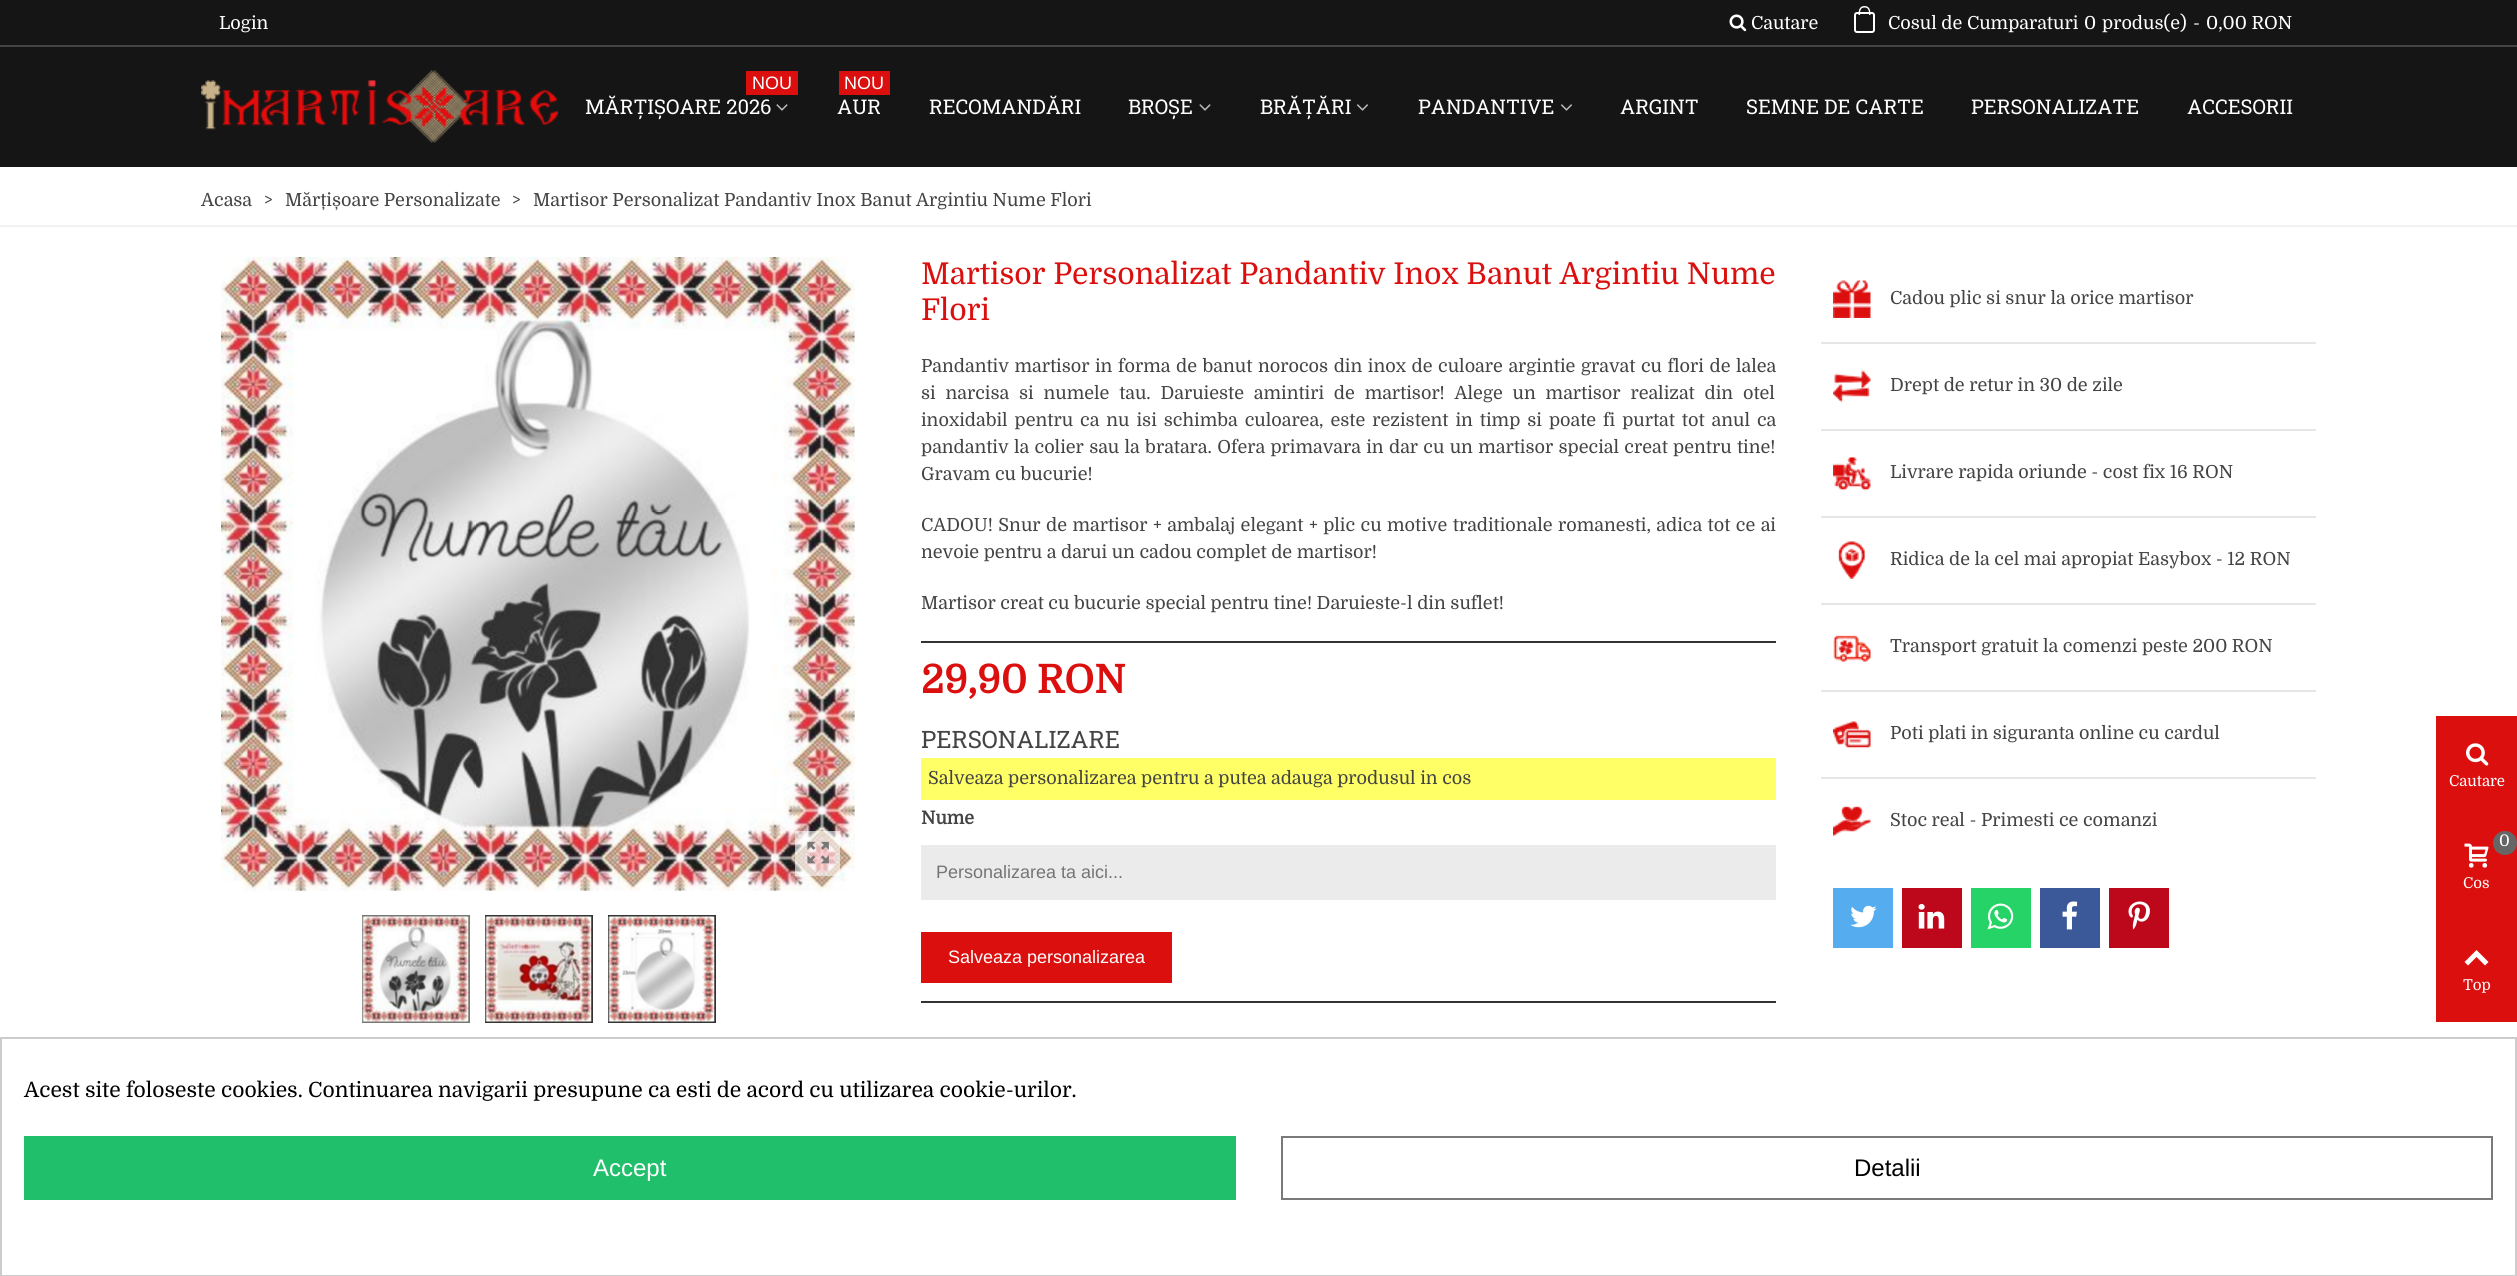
import math
import cairo

surface = cairo.ImageSurface(cairo.FORMAT_RGB24, 2517, 1276)
ctx = cairo.Context(surface)
options = cairo.FontOptions()
options.set_hint_metrics(cairo.HINT_METRICS_OFF)
options.set_hint_style(cairo.HINT_STYLE_NONE)
ctx.set_font_options(options)
ctx.set_miter_limit(4)


def set_color(code):
    ctx.set_source_rgb(*(v / 255 for v in bytes.fromhex(code[-6:])))


def draw_text(x, y, s, family, size, color, bold=False, italic=False):
    ctx.select_font_face(family, cairo.FONT_SLANT_ITALIC if italic else cairo.FONT_SLANT_NORMAL, cairo.FONT_WEIGHT_BOLD if bold else cairo.FONT_WEIGHT_NORMAL)
    ctx.set_font_size(size)
    set_color(color)
    ctx.move_to(x, y)
    ctx.show_text(s)


def draw_spaced(x, y, s, letter, word):
    ctx.move_to(x, y)
    for ch in s:
        ctx.show_text(ch)
        ctx.rel_move_to(letter + word * (ch == ' '), 0)


def fill_rect(x, y, w, h, color):
    set_color(color)
    ctx.rectangle(x, y, w, h)
    ctx.fill()


def rounded_rect(x, y, w, h, r):
    ctx.new_sub_path()
    for i, (u, v) in enumerate([(x + w - r, y + h - r), (x + r, y + h - r), (x + r, y + r), (x + w - r, y + r)]):
        ctx.arc(u, v, r, i * math.pi / 2, (i + 1) * math.pi / 2)
    ctx.close_path()


def draw_image(path, x, y, w, h):
    ctx.save()
    ctx.set_source_surface(cairo.ImageSurface.create_from_png(path), x, y)
    ctx.rectangle(x, y, w, h)
    ctx.fill()
    ctx.restore()


set_color("#ffffff")
ctx.paint()
fill_rect(0, 0, 2517, 167, "#151515")
fill_rect(0, 45, 2517, 2, "#444444")
draw_text(219, 29, "Login", "Domine", 18, "#ffffff")
draw_image("assets/img1.png", 1729, 14, 18, 18)
draw_text(1751, 29, "Cautare", "Domine", 18, "#ffffff")
rounded_rect(1855, 13, 19, 19, 2)
ctx.stroke()
ctx.set_fill_rule(cairo.FILL_RULE_EVEN_ODD)
ctx.new_path()
ctx.move_to(1864.5, 6)
ctx.curve_to(1870, 6, 1870.5, 11, 1870.5, 15)
ctx.line_to(1858.5, 15)
ctx.curve_to(1858.5, 11, 1859, 6, 1864.5, 6)
ctx.close_path()
ctx.move_to(1864.5, 7.5)
ctx.curve_to(1869, 7.5, 1869, 11.5, 1869, 15)
ctx.line_to(1860, 15)
ctx.curve_to(1860, 11.5, 1860, 7.5, 1864.5, 7.5)
ctx.close_path()
ctx.fill()
draw_text(1888, 29, "Cosul de Cumparaturi", "Domine", 18, "#ffffff")
draw_text(2084, 29, "0", "Domine", 18, "#ffffff")
draw_text(2102, 29, "produs(e)", "Domine", 18, "#ffffff")
draw_text(2193, 29, "-", "Domine", 18, "#ffffff")
draw_text(2206, 29, "0,00 RON", "Domine", 18, "#ffffff")
draw_image("assets/img2.png", 201, 70, 357, 73)
fill_rect(746, 71, 52, 24, "#dc0f0f")
draw_text(752, 89, "NOU", "Liberation Sans", 18, "#ffffff")
draw_text(585, 114, "MĂRȚIȘOARE 2026", "Roboto Slab", 20.25, "#ffffff")
draw_image("assets/img3.png", 776, 104, 12, 7)
fill_rect(839, 71, 51, 24, "#dc0f0f")
draw_text(844, 89, "NOU", "Liberation Sans", 18, "#ffffff")
draw_text(837, 114, "AUR", "Roboto Slab", 20.25, "#ffffff")
draw_text(929, 114, "RECOMANDĂRI", "Roboto Slab", 20.25, "#ffffff")
draw_text(1128, 114, "BROȘE", "Roboto Slab", 20.25, "#ffffff")
draw_image("assets/img3.png", 1199, 104, 12, 7)
draw_text(1260, 114, "BRĂȚĂRI", "Roboto Slab", 20.25, "#ffffff")
draw_image("assets/img4.png", 1356, 104, 12, 7)
draw_text(1418, 114, "PANDANTIVE", "Roboto Slab", 20.25, "#ffffff")
draw_image("assets/img4.png", 1560, 104, 12, 7)
draw_text(1620, 114, "ARGINT", "Roboto Slab", 20.25, "#ffffff")
draw_text(1746, 114, "SEMNE DE CARTE", "Roboto Slab", 20.25, "#ffffff")
draw_text(1971, 114, "PERSONALIZATE", "Roboto Slab", 20.25, "#ffffff")
draw_text(2187, 114, "ACCESORII", "Roboto Slab", 20.25, "#ffffff")
fill_rect(0, 225, 2517, 2, "#f2f2f2")
draw_text(201, 206, "Acasa", "Domine", 18, "#444444")
draw_text(264, 206, ">", "Domine", 18, "#444444")
draw_text(285, 206, "Mărțișoare Personalizate", "Domine", 18, "#444444")
draw_text(512, 206, ">", "Domine", 18, "#444444")
draw_text(533, 206, "Martisor Personalizat Pandantiv Inox Banut Argintiu Nume Flori", "Domine", 18, "#444444")
draw_image("assets/img5.png", 221, 257, 634, 634)
ctx.set_source_rgba(1, 1, 1, 0.6)
ctx.rectangle(795, 831, 45, 45)
ctx.fill()
draw_image("assets/img6.png", 807, 841, 22, 23)
ctx.rectangle(363, 916, 106, 106)
set_color("#777777")
ctx.stroke()
draw_image("assets/img7.png", 362, 916, 107, 106)
ctx.rectangle(486, 916, 106, 106)
set_color("#333333")
ctx.stroke()
draw_image("assets/img8.png", 485, 916, 107, 106)
ctx.rectangle(609, 916, 106, 106)
ctx.stroke()
draw_image("assets/img9.png", 608, 916, 107, 106)
draw_text(921, 284, "Martisor Personalizat Pandantiv Inox Banut Argintiu Nume", "Domine", 30, "#dc0f0f")
draw_text(921, 320, "Flori", "Domine", 30, "#dc0f0f")
ctx.set_font_size(18)
set_color("#444444")
draw_spaced(921, 372, "Pandantiv martisor in forma de banut norocos din inox de culoare argintie gravat cu flori de lalea", 0, 1)
draw_spaced(921, 399, "si narcisa si numele tau. Daruieste amintiri de martisor! Alege un martisor realizat din otel", 0, 5.25)
draw_spaced(921, 426, "inoxidabil pentru ca nu isi schimba culoarea, este rezistent in timp si poate fi purtat tot anul ca", 0, 2.4)
draw_spaced(921, 453, "pandantiv la colier sau la bratara. Ofera primavara in dar cu un martisor special creat pentru tine!", 0, 0.75)
draw_text(921, 480, "Gravam cu bucurie!", "Domine", 18, "#444444")
draw_spaced(921, 531, "CADOU! Snur de martisor + ambalaj elegant + plic cu motive traditionale romanesti, adica tot ce ai", 0, 0.9)
draw_text(921, 558, "nevoie pentru a darui un cadou complet de martisor!", "Domine", 18, "#444444")
draw_text(921, 609, "Martisor creat cu bucurie special pentru tine! Daruieste-l din suflet!", "Domine", 18, "#444444")
fill_rect(921, 641, 855, 2, "#333333")
draw_text(921, 693, "29,90 RON", "Domine", 39, "#dc0f0f", bold=True)
draw_text(921, 748, "PERSONALIZARE", "Roboto Slab", 24, "#444444")
fill_rect(921, 758, 855, 42, "#ffff66")
draw_text(928, 784, "Salveaza personalizarea pentru a putea adauga produsul in cos", "Domine", 18, "#444444")
draw_text(921, 824, "Nume", "Domine", 18, "#444444", bold=True)
fill_rect(921, 845, 855, 55, "#ebebeb")
draw_text(936, 878, "Personalizarea ta aici...", "Liberation Sans", 18, "#757575")
fill_rect(921, 932, 251, 51, "#dc0f0f")
draw_text(948, 963, "Salveaza personalizarea", "Liberation Sans", 18, "#ffffff")
fill_rect(921, 1001, 855, 2, "#333333")
fill_rect(1821, 342, 495, 2, "#e6e6e6")
draw_image("assets/img10.png", 1833, 280, 38, 38)
draw_text(1890, 304, "Cadou plic si snur la orice martisor", "Domine", 18, "#444444")
fill_rect(1821, 429, 495, 2, "#e6e6e6")
draw_image("assets/img11.png", 1833, 370, 38, 33)
draw_text(1890, 391, "Drept de retur in 30 de zile", "Domine", 18, "#444444")
fill_rect(1821, 516, 495, 2, "#e6e6e6")
draw_image("assets/img12.png", 1833, 456, 38, 35)
draw_text(1890, 478, "Livrare rapida oriunde - cost fix 16 RON", "Domine", 18, "#444444")
fill_rect(1821, 603, 495, 2, "#e6e6e6")
draw_image("assets/img13.png", 1838, 541, 27, 38)
draw_text(1890, 565, "Ridica de la cel mai apropiat Easybox - 12 RON", "Domine", 18, "#444444")
fill_rect(1821, 690, 495, 2, "#e6e6e6")
draw_image("assets/img14.png", 1833, 635, 38, 27)
draw_text(1890, 652, "Transport gratuit la comenzi peste 200 RON", "Domine", 18, "#444444")
fill_rect(1821, 777, 495, 2, "#e6e6e6")
draw_image("assets/img15.png", 1833, 721, 38, 28)
draw_text(1890, 739, "Poti plati in siguranta online cu cardul", "Domine", 18, "#444444")
draw_image("assets/img16.png", 1833, 805, 38, 31)
draw_text(1890, 826, "Stoc real - Primesti ce comanzi", "Domine", 18, "#444444")
fill_rect(1833, 888, 60, 60, "#55acee")
draw_image("assets/img17.png", 1850, 905, 27, 23)
fill_rect(1902, 888, 60, 60, "#bd081c")
draw_image("assets/img18.png", 1918, 904, 27, 25)
fill_rect(1971, 888, 60, 60, "#25d366")
draw_image("assets/img19.png", 1987, 903, 27, 27)
fill_rect(2040, 888, 60, 60, "#3b5998")
draw_image("assets/img20.png", 2062, 901, 16, 29)
fill_rect(2109, 888, 60, 60, "#bd081c")
draw_image("assets/img21.png", 2128, 901, 22, 29)
fill_rect(2436, 716, 81, 306, "#dc0f0f")
draw_image("assets/img22.png", 2466, 743, 23, 23)
draw_text(2449, 786, "Cautare", "Domine", 15, "#ffffff")
set_color("#666666")
ctx.new_path()
ctx.arc(2505, 843, 12, 0, 2 * math.pi)
ctx.fill()
draw_text(2499, 846, "0", "Domine", 16, "#ffffff")
draw_image("assets/img23.png", 2464, 843, 25, 25)
draw_text(2463, 888, "Cos", "Domine", 15, "#ffffff")
ctx.set_fill_rule(cairo.FILL_RULE_WINDING)
ctx.new_path()
ctx.move_to(2464.5, 962)
ctx.line_to(2476.5, 950)
ctx.line_to(2488.5, 962)
ctx.line_to(2485, 965.5)
ctx.line_to(2476.5, 957)
ctx.line_to(2468, 965.5)
ctx.close_path()
ctx.fill()
draw_text(2463, 990, "Top", "Domine", 15, "#ffffff")
ctx.rectangle(1, 1038, 2515, 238)
set_color("#cccccc")
ctx.stroke()
draw_text(24, 1097, "Acest site foloseste cookies. Continuarea navigarii presupune ca esti de acord cu utilizarea cookie-urilor.", "Domine", 21, "#000000")
fill_rect(24, 1136, 1212, 64, "#20bf6b")
draw_text(593, 1176, "Accept", "Liberation Sans", 24, "#ffffff")
ctx.rectangle(1282, 1137, 1210, 62)
set_color("#7a7a7a")
ctx.stroke()
draw_text(1854, 1176, "Detalii", "Liberation Sans", 24, "#000000")
surface.write_to_png("output.png")
